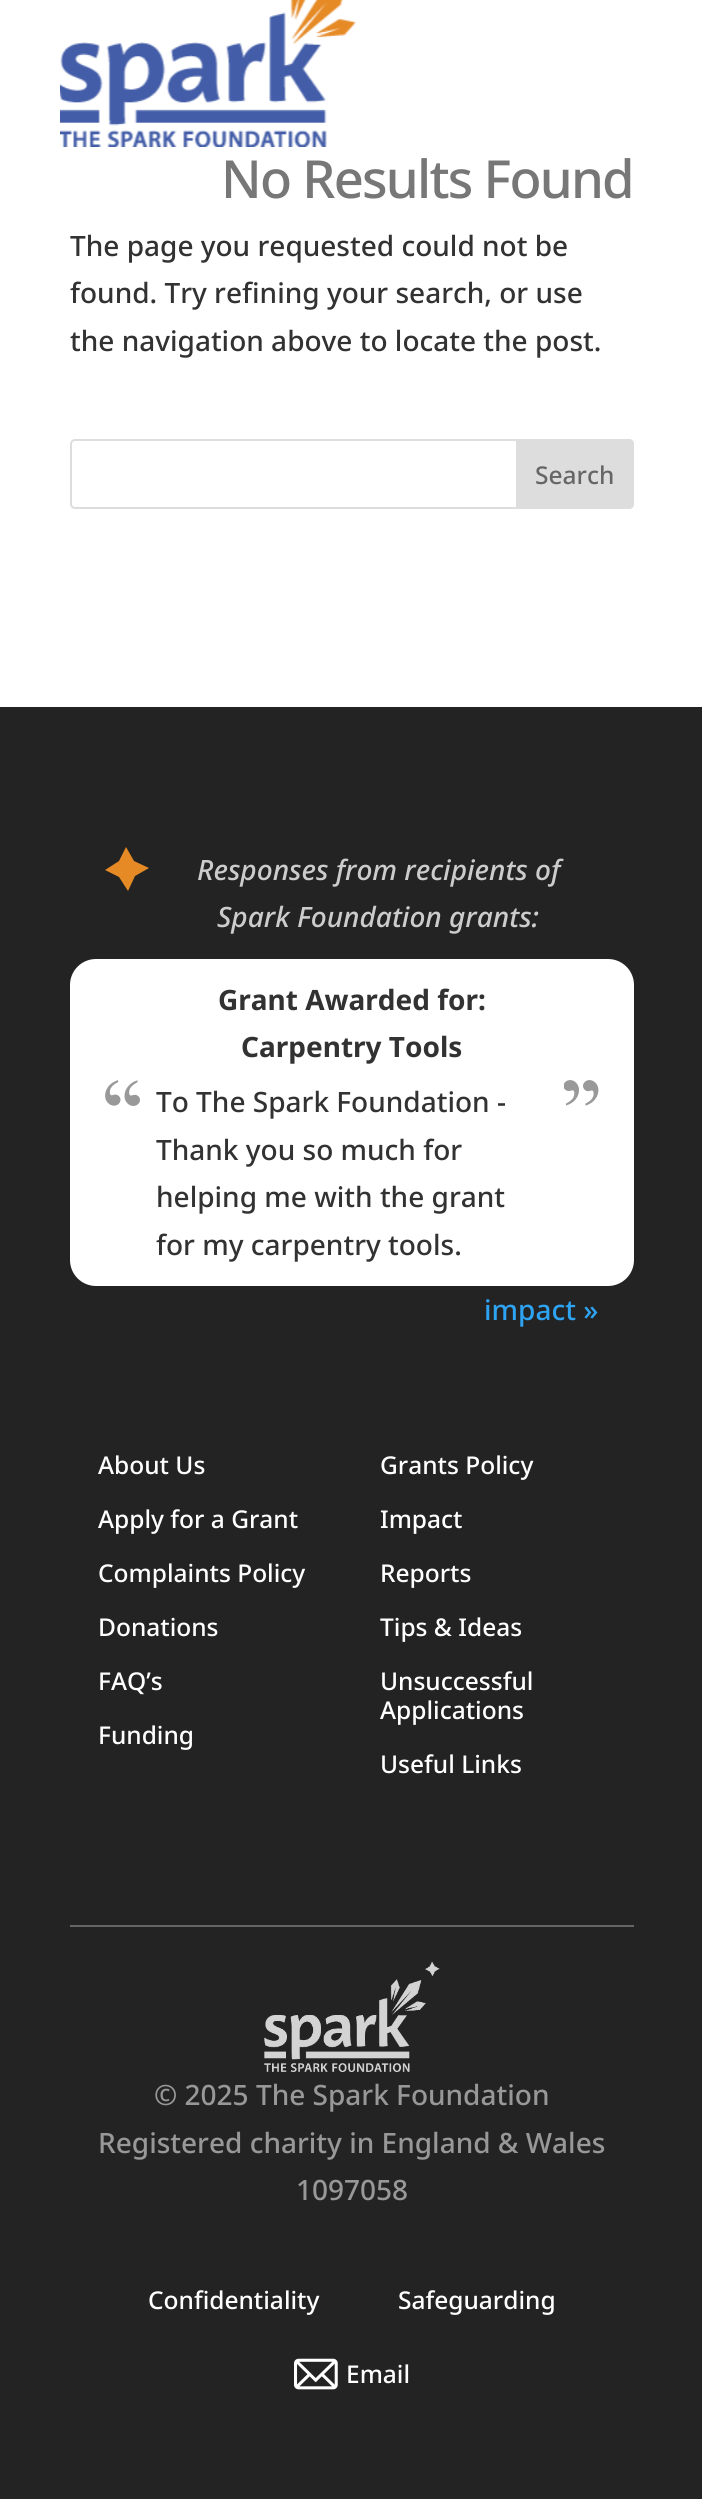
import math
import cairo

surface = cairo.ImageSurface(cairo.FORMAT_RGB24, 702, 2499)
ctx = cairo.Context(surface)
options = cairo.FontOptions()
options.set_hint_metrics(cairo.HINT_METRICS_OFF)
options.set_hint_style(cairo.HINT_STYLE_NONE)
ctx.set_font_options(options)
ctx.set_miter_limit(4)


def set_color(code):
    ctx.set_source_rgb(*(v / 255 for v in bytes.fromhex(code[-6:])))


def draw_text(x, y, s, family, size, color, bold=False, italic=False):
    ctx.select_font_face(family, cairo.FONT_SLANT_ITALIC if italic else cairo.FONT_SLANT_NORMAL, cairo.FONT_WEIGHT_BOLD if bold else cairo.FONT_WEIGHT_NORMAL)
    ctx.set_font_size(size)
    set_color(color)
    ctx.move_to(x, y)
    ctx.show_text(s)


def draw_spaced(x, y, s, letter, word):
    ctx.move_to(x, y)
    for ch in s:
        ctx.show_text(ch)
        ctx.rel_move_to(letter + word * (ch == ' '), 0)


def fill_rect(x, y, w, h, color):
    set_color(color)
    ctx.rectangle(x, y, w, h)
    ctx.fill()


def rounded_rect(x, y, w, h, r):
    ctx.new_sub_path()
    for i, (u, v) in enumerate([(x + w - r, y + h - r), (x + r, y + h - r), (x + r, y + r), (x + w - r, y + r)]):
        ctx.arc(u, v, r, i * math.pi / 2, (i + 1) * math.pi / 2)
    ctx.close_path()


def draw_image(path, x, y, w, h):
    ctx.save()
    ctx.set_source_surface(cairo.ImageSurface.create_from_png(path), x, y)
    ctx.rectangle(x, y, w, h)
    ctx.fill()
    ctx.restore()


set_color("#ffffff")
ctx.paint()
draw_image("assets/img1.png", 60, 0, 296, 147)
ctx.select_font_face("Noto Sans Medium")
ctx.set_font_size(52.5)
set_color("#777777")
draw_spaced(221, 198, "No Results Found", -1.75, 0)
draw_text(70, 256, "The page you requested could not be", "Noto Sans Medium", 28, "#323232")
draw_text(70, 303, "found. Try refining your search, or use", "Noto Sans Medium", 28, "#323232")
draw_text(70, 351, "the navigation above to locate the post.", "Noto Sans Medium", 28, "#323232")
rounded_rect(71, 440, 562, 68, 4)
set_color("#dddddd")
ctx.stroke()
ctx.new_path()
ctx.move_to(517, 440)
ctx.line_to(629, 440)
ctx.curve_to(631, 440, 633, 442, 633, 444)
ctx.line_to(633, 504)
ctx.curve_to(633, 506, 631, 508, 629, 508)
ctx.line_to(517, 508)
ctx.close_path()
ctx.fill_preserve()
ctx.stroke()
draw_text(535, 484, "Search", "Noto Sans Medium", 24.5, "#666666")
fill_rect(0, 707, 702, 1792, "#232323")
set_color("#e58a24")
ctx.new_path()
ctx.move_to(126, 847)
ctx.line_to(134, 861)
ctx.line_to(149, 868)
ctx.line_to(135, 876)
ctx.line_to(128, 891)
ctx.line_to(119, 877)
ctx.line_to(105, 870)
ctx.line_to(119, 861)
ctx.close_path()
ctx.fill()
draw_text(197, 880, "Responses from recipients of", "Noto Sans Medium", 28, "#cccccc", italic=True)
draw_text(217, 927, "Spark Foundation grants:", "Noto Sans Medium", 28, "#cccccc", italic=True)
set_color("#ffffff")
rounded_rect(70, 959, 564, 327, 26)
ctx.fill()
draw_text(218, 1010, "Grant Awarded for:", "Noto Sans", 28, "#323232", bold=True)
draw_text(241, 1057, "Carpentry Tools", "Noto Sans", 28, "#323232", bold=True)
draw_image("assets/img2.png", 105, 1080, 35, 26)
draw_text(156, 1112, "To The Spark Foundation -", "Noto Sans Medium", 28, "#323232")
draw_text(156, 1160, "Thank you so much for", "Noto Sans Medium", 28, "#323232")
draw_text(156, 1207, "helping me with the grant", "Noto Sans Medium", 28, "#323232")
draw_text(156, 1255, "for my carpentry tools.", "Noto Sans Medium", 28, "#323232")
draw_image("assets/img3.png", 564, 1080, 35, 26)
draw_text(484, 1320, "impact »", "Noto Sans Medium", 28, "#2ea3f2")
draw_text(98, 1474, "About Us", "Noto Sans Medium", 24.5, "#ffffff")
draw_text(380, 1474, "Grants Policy", "Noto Sans Medium", 24.5, "#ffffff")
draw_text(98, 1528, "Apply for a Grant", "Noto Sans Medium", 24.5, "#ffffff")
draw_text(380, 1528, "Impact", "Noto Sans Medium", 24.5, "#ffffff")
draw_text(98, 1582, "Complaints Policy", "Noto Sans Medium", 24.5, "#ffffff")
draw_text(380, 1582, "Reports", "Noto Sans Medium", 24.5, "#ffffff")
draw_text(98, 1636, "Donations", "Noto Sans Medium", 24.5, "#ffffff")
draw_text(380, 1636, "Tips & Ideas", "Noto Sans Medium", 24.5, "#ffffff")
draw_text(98, 1690, "FAQ’s", "Noto Sans Medium", 24.5, "#ffffff")
draw_text(380, 1690, "Unsuccessful", "Noto Sans Medium", 24.5, "#ffffff")
draw_text(380, 1719, "Applications", "Noto Sans Medium", 24.5, "#ffffff")
draw_text(98, 1744, "Funding", "Noto Sans Medium", 24.5, "#ffffff")
draw_text(380, 1773, "Useful Links", "Noto Sans Medium", 24.5, "#ffffff")
fill_rect(70, 1925, 564, 2, "#666666")
draw_image("assets/img4.png", 264, 1961, 176, 111)
draw_text(154, 2105, "© 2025 The Spark Foundation", "Noto Sans Medium", 28, "#989898")
draw_text(98, 2153, "Registered charity in England & Wales", "Noto Sans Medium", 28, "#989898")
draw_text(296, 2200, "1097058", "Noto Sans Medium", 28, "#989898")
draw_text(148, 2309, "Confidentiality", "Noto Sans Medium", 24.5, "#ffffff")
draw_text(398, 2309, "Safeguarding", "Noto Sans Medium", 24.5, "#ffffff")
draw_image("assets/img5.png", 294, 2358, 44, 32)
draw_text(346, 2383, "Email", "Noto Sans Medium", 24.5, "#ffffff")
surface.write_to_png("output.png")
